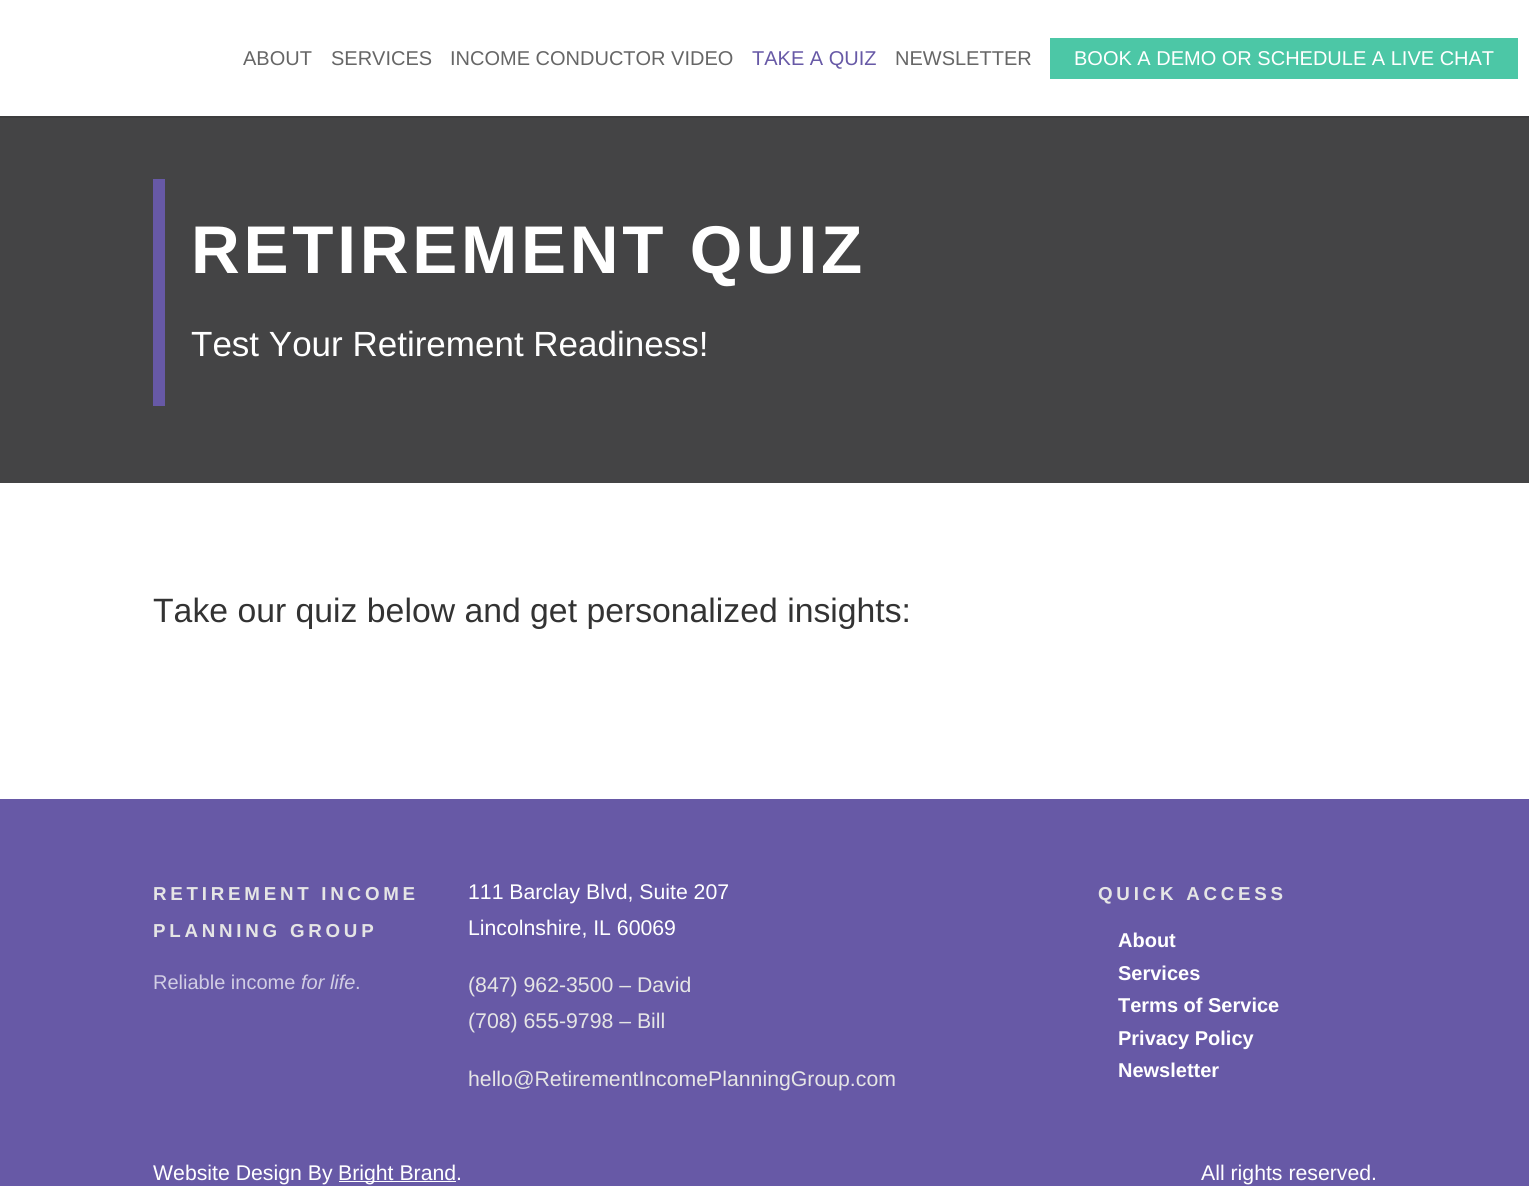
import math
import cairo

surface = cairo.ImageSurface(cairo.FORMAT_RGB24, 1529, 1186)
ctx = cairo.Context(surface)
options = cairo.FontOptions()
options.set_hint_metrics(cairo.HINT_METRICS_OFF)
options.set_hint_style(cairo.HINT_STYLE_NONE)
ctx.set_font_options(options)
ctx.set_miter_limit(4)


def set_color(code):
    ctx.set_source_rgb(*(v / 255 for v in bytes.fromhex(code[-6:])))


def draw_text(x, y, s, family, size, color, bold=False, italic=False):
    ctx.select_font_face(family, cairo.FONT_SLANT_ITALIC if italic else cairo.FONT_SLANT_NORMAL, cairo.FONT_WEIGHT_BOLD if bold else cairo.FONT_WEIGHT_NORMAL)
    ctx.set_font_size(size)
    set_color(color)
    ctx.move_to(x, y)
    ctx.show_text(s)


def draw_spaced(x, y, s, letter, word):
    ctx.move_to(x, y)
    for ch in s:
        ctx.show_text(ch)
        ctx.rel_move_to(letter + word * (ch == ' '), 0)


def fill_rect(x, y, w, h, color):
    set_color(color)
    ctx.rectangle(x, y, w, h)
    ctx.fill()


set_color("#ffffff")
ctx.paint()
fill_rect(0, 116, 1529, 2, "#3d3d3e")
draw_text(243, 65, "ABOUT", "Liberation Sans", 20, "#666666")
draw_text(331, 65, "SERVICES", "Liberation Sans", 20, "#666666")
draw_text(450, 65, "INCOME CONDUCTOR VIDEO", "Liberation Sans", 20, "#666666")
draw_text(752, 65, "TAKE A QUIZ", "Liberation Sans", 20, "#6759a6")
draw_text(895, 65, "NEWSLETTER", "Liberation Sans", 20, "#666666")
fill_rect(1050, 38, 468, 41, "#4cc7a6")
draw_text(1074, 65, "BOOK A DEMO OR SCHEDULE A LIVE CHAT", "Liberation Sans", 20, "#ffffff")
fill_rect(0, 118, 1529, 365, "#444445")
fill_rect(153, 179, 12, 227, "#6759a6")
ctx.select_font_face("Liberation Sans", cairo.FONT_SLANT_NORMAL, cairo.FONT_WEIGHT_BOLD)
ctx.set_font_size(67.5)
set_color("#ffffff")
draw_spaced(191, 273, "RETIREMENT QUIZ", 3.75, 0)
draw_text(191, 356, "Test Your Retirement Readiness!", "Liberation Sans", 35, "#ffffff")
draw_text(153, 622, "Take our quiz below and get personalized insights:", "Liberation Sans", 33.75, "#333333")
fill_rect(0, 799, 1529, 387, "#6759a6")
ctx.select_font_face("Liberation Sans", cairo.FONT_SLANT_NORMAL, cairo.FONT_WEIGHT_BOLD)
ctx.set_font_size(18.75)
set_color("#e5e5e5")
draw_spaced(153, 900, "RETIREMENT INCOME", 3.75, 0)
draw_spaced(153, 937, "PLANNING GROUP", 3.75, 0)
draw_text(153, 989, "Reliable income", "Liberation Sans", 20, "#d1cde4")
draw_text(301, 989, "for life", "Liberation Sans", 20, "#d1cde4", italic=True)
draw_text(355, 989, ".", "Liberation Sans", 20, "#d1cde4")
draw_text(468, 899, "111 Barclay Blvd, Suite 207", "Liberation Sans", 21.25, "#ffffff")
draw_text(468, 935, "Lincolnshire, IL 60069", "Liberation Sans", 21.25, "#ffffff")
draw_text(468, 992, "(847) 962-3500 – David", "Liberation Sans", 21.25, "#e5e5e5")
draw_text(468, 1028, "(708) 655-9798 – Bill", "Liberation Sans", 21.25, "#e5e5e5")
draw_text(468, 1086, "hello@RetirementIncomePlanningGroup.com", "Liberation Sans", 21.25, "#e5e5e5")
ctx.select_font_face("Liberation Sans", cairo.FONT_SLANT_NORMAL, cairo.FONT_WEIGHT_BOLD)
ctx.set_font_size(18.75)
draw_spaced(1098, 900, "QUICK ACCESS", 3.75, 0)
draw_text(1118, 947, "About", "Liberation Sans", 20, "#ffffff", bold=True)
draw_text(1118, 980, "Services", "Liberation Sans", 20, "#ffffff", bold=True)
draw_text(1118, 1012, "Terms of Service", "Liberation Sans", 20, "#ffffff", bold=True)
draw_text(1118, 1045, "Privacy Policy", "Liberation Sans", 20, "#ffffff", bold=True)
draw_text(1118, 1077, "Newsletter", "Liberation Sans", 20, "#ffffff", bold=True)
draw_text(153, 1180, "Website Design By", "Liberation Sans", 21.25, "#ffffff")
fill_rect(339, 1181, 117, 1, "#ffffff")
draw_text(338, 1180, "Bright Brand.", "Liberation Sans", 21.25, "#ffffff")
draw_text(1201, 1180, "All rights reserved.", "Liberation Sans", 21.25, "#ffffff")
surface.write_to_png("output.png")
